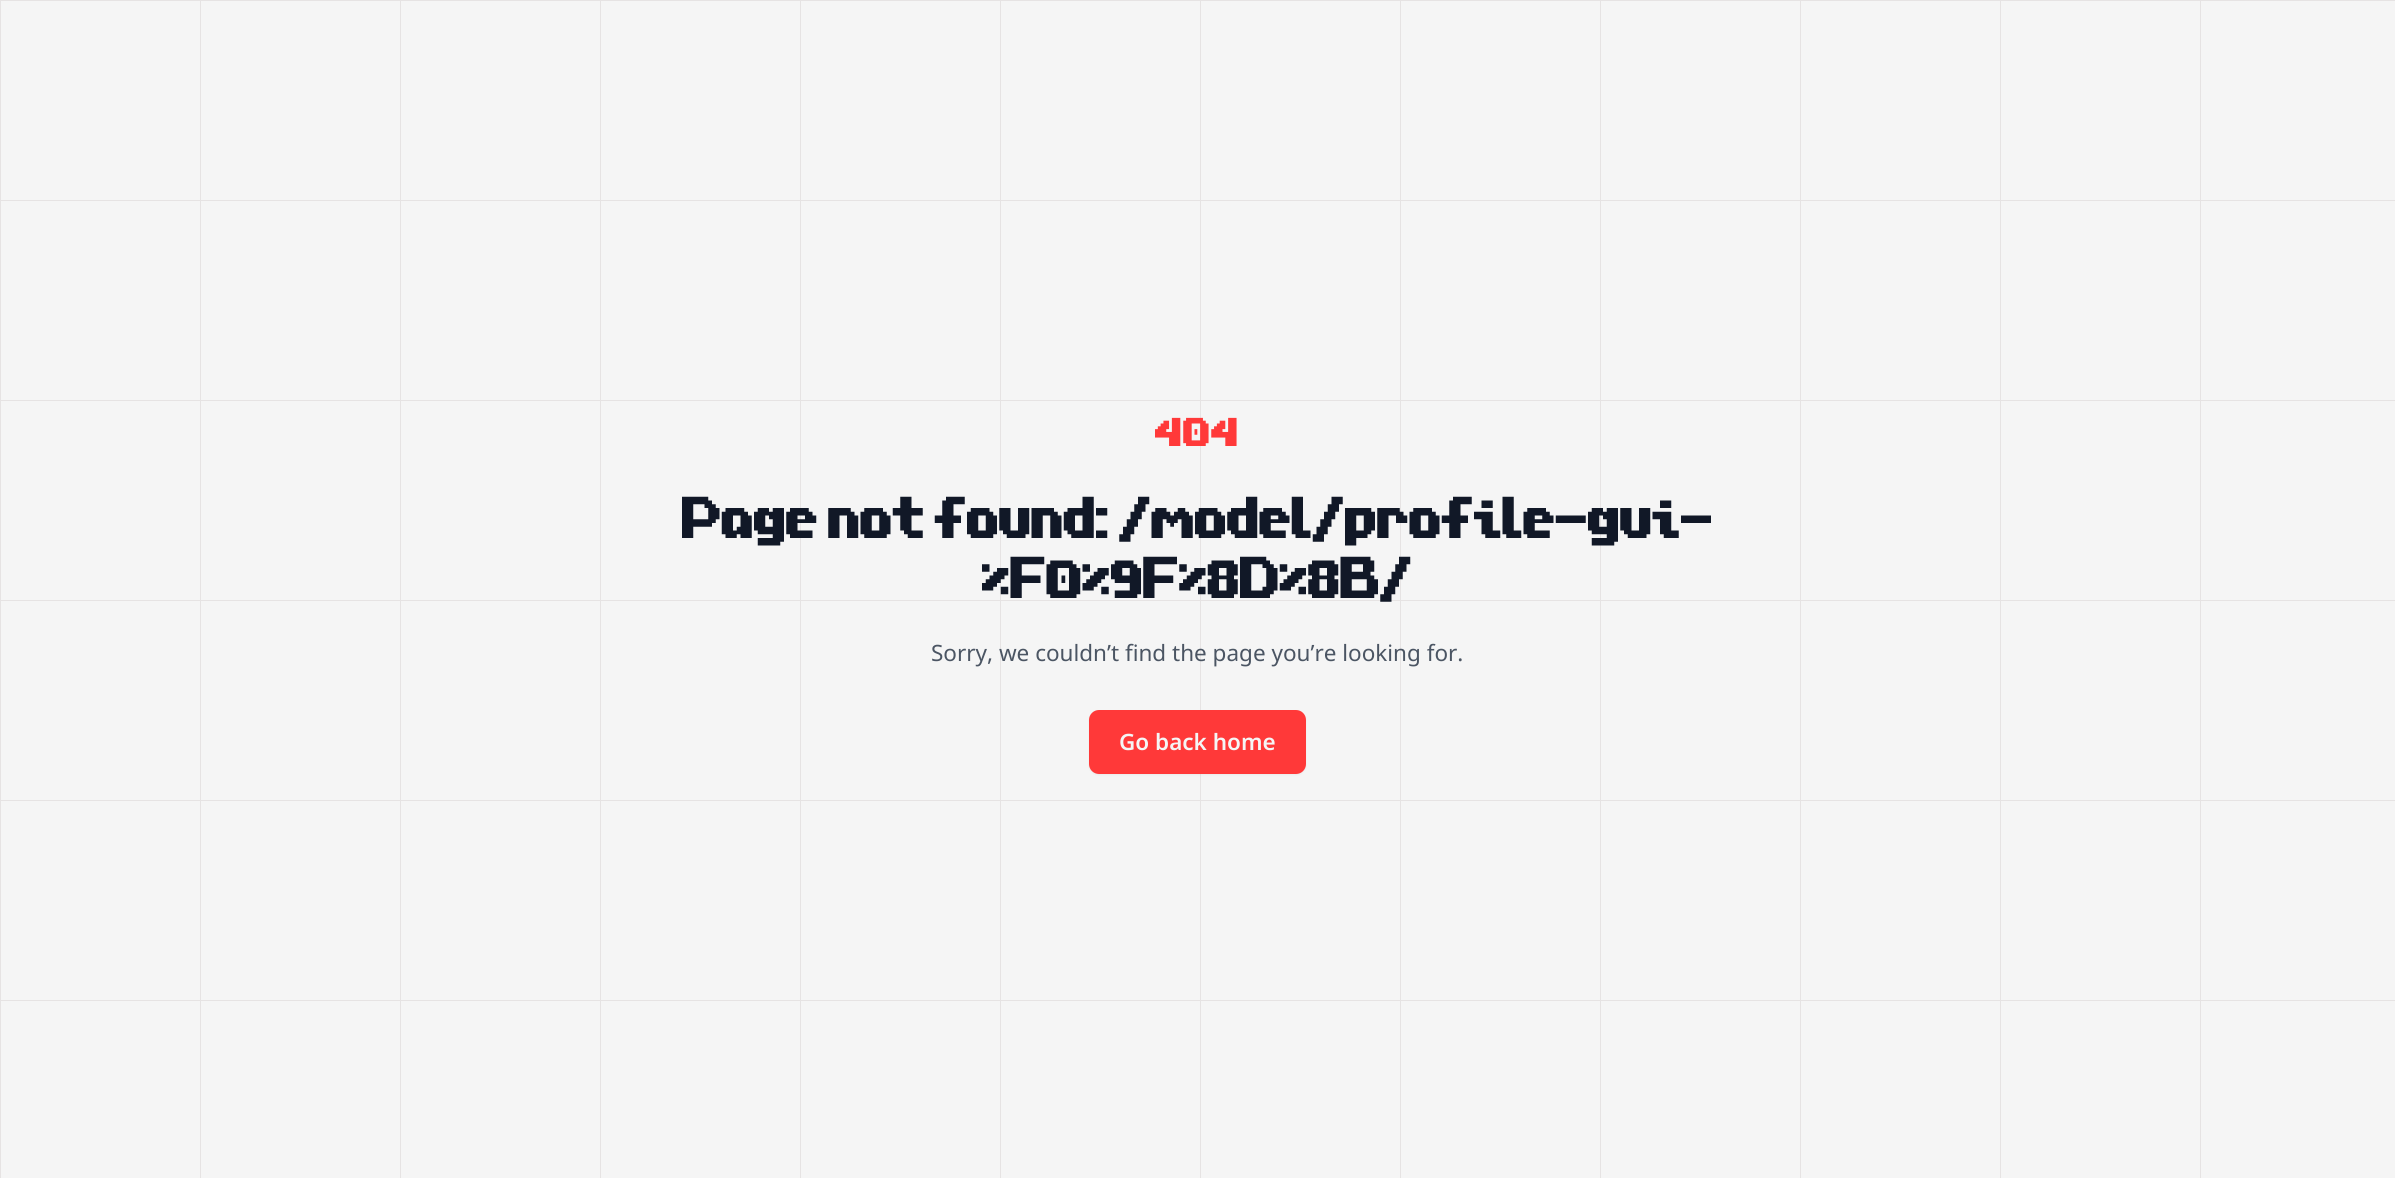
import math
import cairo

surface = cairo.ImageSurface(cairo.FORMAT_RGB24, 2395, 1178)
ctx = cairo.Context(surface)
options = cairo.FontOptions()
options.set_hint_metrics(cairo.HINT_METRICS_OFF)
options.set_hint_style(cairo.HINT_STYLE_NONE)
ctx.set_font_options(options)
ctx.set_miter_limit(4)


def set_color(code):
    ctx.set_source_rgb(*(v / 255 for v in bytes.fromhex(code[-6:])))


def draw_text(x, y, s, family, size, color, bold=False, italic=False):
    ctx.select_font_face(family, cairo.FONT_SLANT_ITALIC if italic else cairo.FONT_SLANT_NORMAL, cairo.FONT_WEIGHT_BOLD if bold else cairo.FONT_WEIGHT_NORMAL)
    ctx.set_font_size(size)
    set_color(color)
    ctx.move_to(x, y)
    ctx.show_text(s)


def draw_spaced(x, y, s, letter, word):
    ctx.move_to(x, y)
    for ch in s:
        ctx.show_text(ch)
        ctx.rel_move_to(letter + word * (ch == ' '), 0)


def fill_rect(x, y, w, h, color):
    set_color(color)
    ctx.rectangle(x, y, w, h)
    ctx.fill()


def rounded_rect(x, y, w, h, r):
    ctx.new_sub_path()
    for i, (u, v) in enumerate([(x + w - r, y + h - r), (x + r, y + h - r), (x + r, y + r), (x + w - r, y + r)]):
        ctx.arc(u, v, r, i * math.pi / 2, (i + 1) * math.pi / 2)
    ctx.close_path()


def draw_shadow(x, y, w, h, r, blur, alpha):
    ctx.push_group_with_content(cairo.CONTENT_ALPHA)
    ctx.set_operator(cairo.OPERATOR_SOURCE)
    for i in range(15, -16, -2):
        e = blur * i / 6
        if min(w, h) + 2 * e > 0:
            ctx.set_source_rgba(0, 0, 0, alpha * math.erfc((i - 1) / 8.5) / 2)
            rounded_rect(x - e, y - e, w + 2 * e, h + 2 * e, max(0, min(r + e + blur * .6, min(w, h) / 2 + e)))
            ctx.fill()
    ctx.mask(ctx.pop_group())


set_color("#f5f5f5")
ctx.paint()
fill_rect(0, 0, 2395, 1, "#e6e3e3")
fill_rect(0, 200, 2395, 1, "#e6e3e3")
fill_rect(0, 400, 2395, 1, "#e6e3e3")
fill_rect(0, 600, 2395, 1, "#e6e3e3")
fill_rect(0, 800, 2395, 1, "#e6e3e3")
fill_rect(0, 1000, 2395, 1, "#e6e3e3")
fill_rect(0, 0, 1, 1178, "#e6e3e3")
fill_rect(200, 0, 1, 1178, "#e6e3e3")
fill_rect(400, 0, 1, 1178, "#e6e3e3")
fill_rect(600, 0, 1, 1178, "#e6e3e3")
fill_rect(800, 0, 1, 1178, "#e6e3e3")
fill_rect(1000, 0, 1, 1178, "#e6e3e3")
fill_rect(1200, 0, 1, 1178, "#e6e3e3")
fill_rect(1400, 0, 1, 1178, "#e6e3e3")
fill_rect(1600, 0, 1, 1178, "#e6e3e3")
fill_rect(1800, 0, 1, 1178, "#e6e3e3")
fill_rect(2000, 0, 1, 1178, "#e6e3e3")
fill_rect(2200, 0, 1, 1178, "#e6e3e3")
draw_text(1155, 446, "404", "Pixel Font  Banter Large", 45, "#ff3939", bold=True)
ctx.set_font_size(60)
set_color("#111827")
draw_spaced(682, 538, "Page not found: /model/profile-gui-", -1.5, 0)
draw_spaced(982, 598, "%F0%9F%8D%8B/", -1.5, 0)
draw_text(931, 661, "Sorry, we couldn’t find the page you’re looking for.", "Noto Sans", 22.5, "#4b5563")
set_color("#000000")
draw_shadow(1089, 711, 217, 64, 10, 1, 0.05)
set_color("#ff3939")
rounded_rect(1089, 710, 217, 64, 10)
ctx.fill()
draw_text(1119, 750, "Go back home", "Noto Sans SemiBold", 22.5, "#f5f5f5")
surface.write_to_png("output.png")
